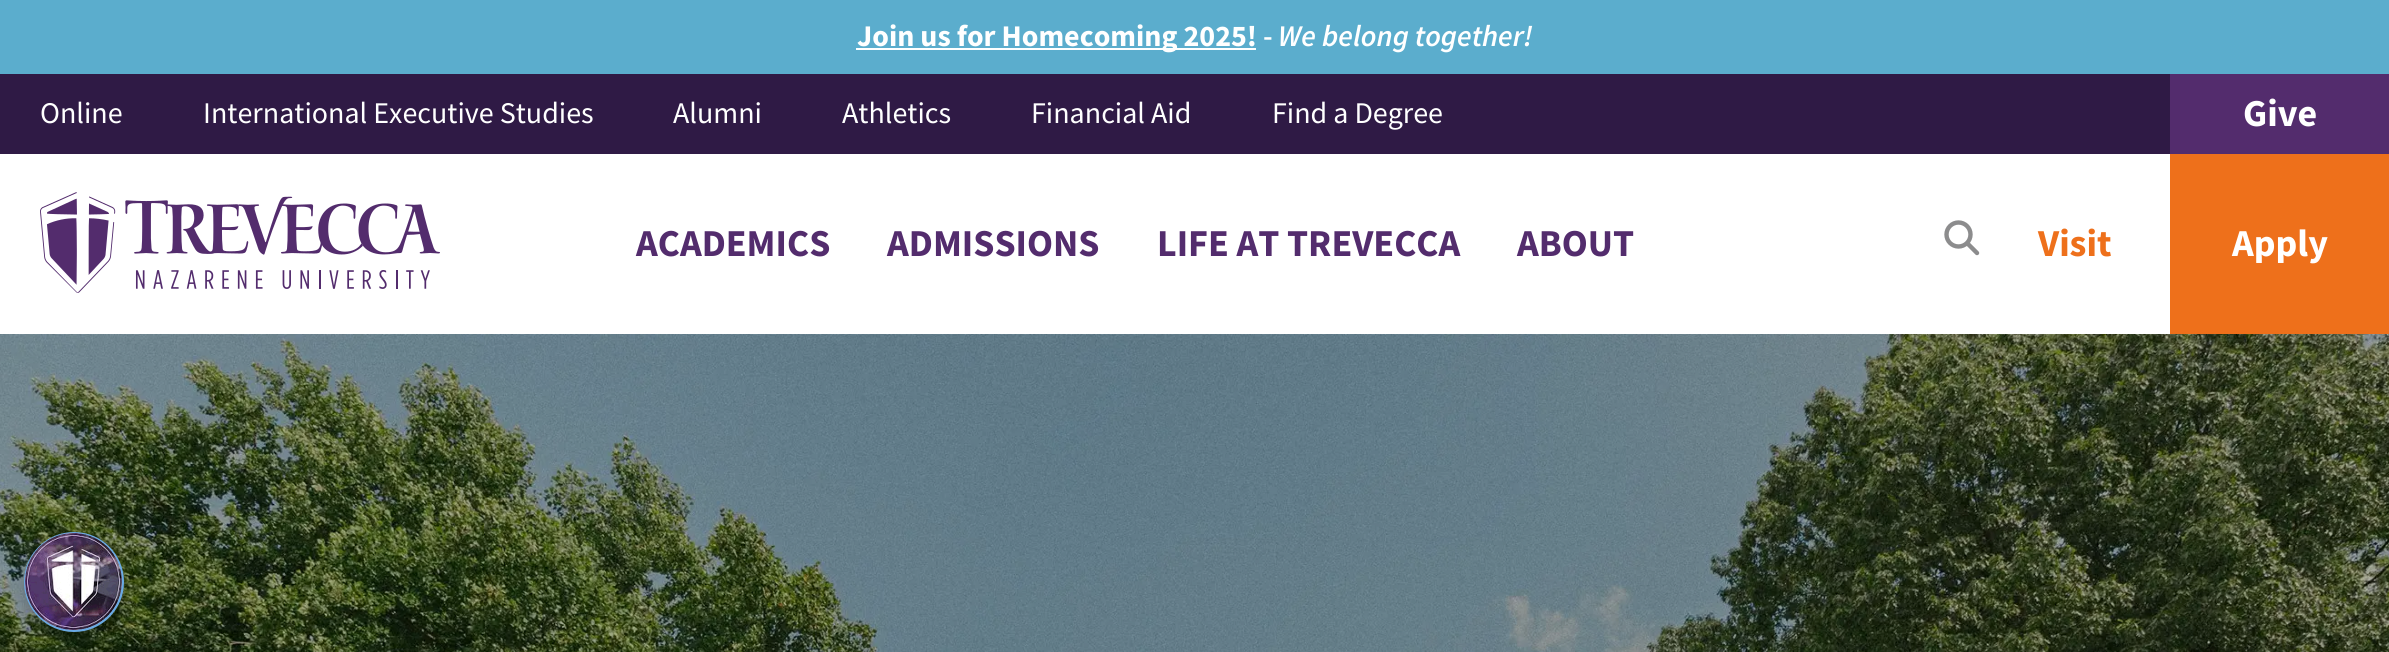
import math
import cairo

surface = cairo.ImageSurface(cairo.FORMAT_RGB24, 2389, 652)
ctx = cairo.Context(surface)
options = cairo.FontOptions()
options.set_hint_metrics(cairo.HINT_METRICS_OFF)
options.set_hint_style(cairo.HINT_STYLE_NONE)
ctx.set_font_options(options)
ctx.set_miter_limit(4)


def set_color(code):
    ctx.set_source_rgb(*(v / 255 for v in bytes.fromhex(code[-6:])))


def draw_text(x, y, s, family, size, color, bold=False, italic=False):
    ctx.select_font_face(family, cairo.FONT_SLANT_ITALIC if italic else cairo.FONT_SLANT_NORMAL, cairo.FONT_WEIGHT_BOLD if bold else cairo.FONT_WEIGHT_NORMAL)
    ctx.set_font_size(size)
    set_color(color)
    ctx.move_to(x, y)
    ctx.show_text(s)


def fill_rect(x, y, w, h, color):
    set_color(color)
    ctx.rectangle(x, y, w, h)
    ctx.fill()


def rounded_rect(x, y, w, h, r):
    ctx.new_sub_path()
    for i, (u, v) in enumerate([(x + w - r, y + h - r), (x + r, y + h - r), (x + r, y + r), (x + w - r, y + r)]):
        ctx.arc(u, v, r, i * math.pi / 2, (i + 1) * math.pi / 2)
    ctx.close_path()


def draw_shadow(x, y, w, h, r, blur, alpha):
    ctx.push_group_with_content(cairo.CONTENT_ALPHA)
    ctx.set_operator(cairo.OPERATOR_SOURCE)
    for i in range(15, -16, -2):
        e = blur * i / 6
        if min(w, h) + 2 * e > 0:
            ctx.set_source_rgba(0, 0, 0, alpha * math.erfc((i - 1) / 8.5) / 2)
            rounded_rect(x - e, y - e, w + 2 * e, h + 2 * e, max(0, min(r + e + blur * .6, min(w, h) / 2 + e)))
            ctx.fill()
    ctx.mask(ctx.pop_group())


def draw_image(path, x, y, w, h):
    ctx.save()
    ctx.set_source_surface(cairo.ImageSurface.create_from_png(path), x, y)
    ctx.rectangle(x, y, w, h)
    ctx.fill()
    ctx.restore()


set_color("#ffffff")
ctx.paint()
fill_rect(0, 0, 2389, 74, "#5badcd")
fill_rect(856, 48, 400, 2, "#ffffff")
draw_text(857, 46, "Join us for Homecoming 2025!", "Source Sans Pro", 30, "#ffffff", bold=True)
draw_text(1263, 46, "-", "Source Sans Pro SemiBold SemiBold", 30, "#ffffff")
draw_text(1278, 46, "We belong together!", "Source Sans Pro SemiBold SemiBold", 30, "#ffffff", italic=True)
fill_rect(0, 74, 2170, 80, "#2f1a45")
draw_text(40, 123, "Online", "Source Sans Pro", 30, "#ffffff")
draw_text(203, 123, "International Executive Studies", "Source Sans Pro", 30, "#ffffff")
draw_text(673, 123, "Alumni", "Source Sans Pro", 30, "#ffffff")
draw_text(842, 123, "Athletics", "Source Sans Pro", 30, "#ffffff")
draw_text(1031, 123, "Financial Aid", "Source Sans Pro", 30, "#ffffff")
draw_text(1272, 123, "Find a Degree", "Source Sans Pro", 30, "#ffffff")
fill_rect(2170, 74, 219, 80, "#532c6d")
draw_text(2243, 126, "Give", "Source Sans Pro", 38, "#ffffff", bold=True)
draw_image("assets/img1.png", 40, 192, 400, 101)
draw_text(636, 256, "ACADEMICS", "Source Sans Pro", 38, "#532c6d", bold=True)
draw_text(887, 256, "ADMISSIONS", "Source Sans Pro", 38, "#532c6d", bold=True)
draw_text(1157, 256, "LIFE AT TREVECCA", "Source Sans Pro", 38, "#532c6d", bold=True)
draw_text(1517, 256, "ABOUT", "Source Sans Pro", 38, "#532c6d", bold=True)
ctx.new_path()
ctx.arc(1958.5, 234.5, 12, 0, 2 * math.pi)
set_color("#8c8c8d")
ctx.set_line_width(4.4)
ctx.stroke()
ctx.new_path()
ctx.move_to(1977, 253)
ctx.line_to(1967.5, 243.5)
ctx.set_line_cap(cairo.LINE_CAP_ROUND)
ctx.set_line_join(cairo.LINE_JOIN_ROUND)
ctx.stroke()
draw_text(2038, 256, "Visit", "Source Sans Pro", 38, "#ee701b", bold=True)
fill_rect(2170, 154, 219, 180, "#ee701b")
draw_text(2232, 256, "Apply", "Source Sans Pro", 38, "#ffffff", bold=True)
draw_image("assets/img2.png", 0, 334, 2389, 318)
set_color("#000000")
draw_shadow(24, 540, 100, 100, 50, 8, 0.2)
set_color("#6aaae4")
ctx.arc(74, 582, 50, 0, 2 * math.pi)
ctx.fill()
draw_image("assets/img3.png", 25, 533, 97, 97)
surface.write_to_png("output.png")
